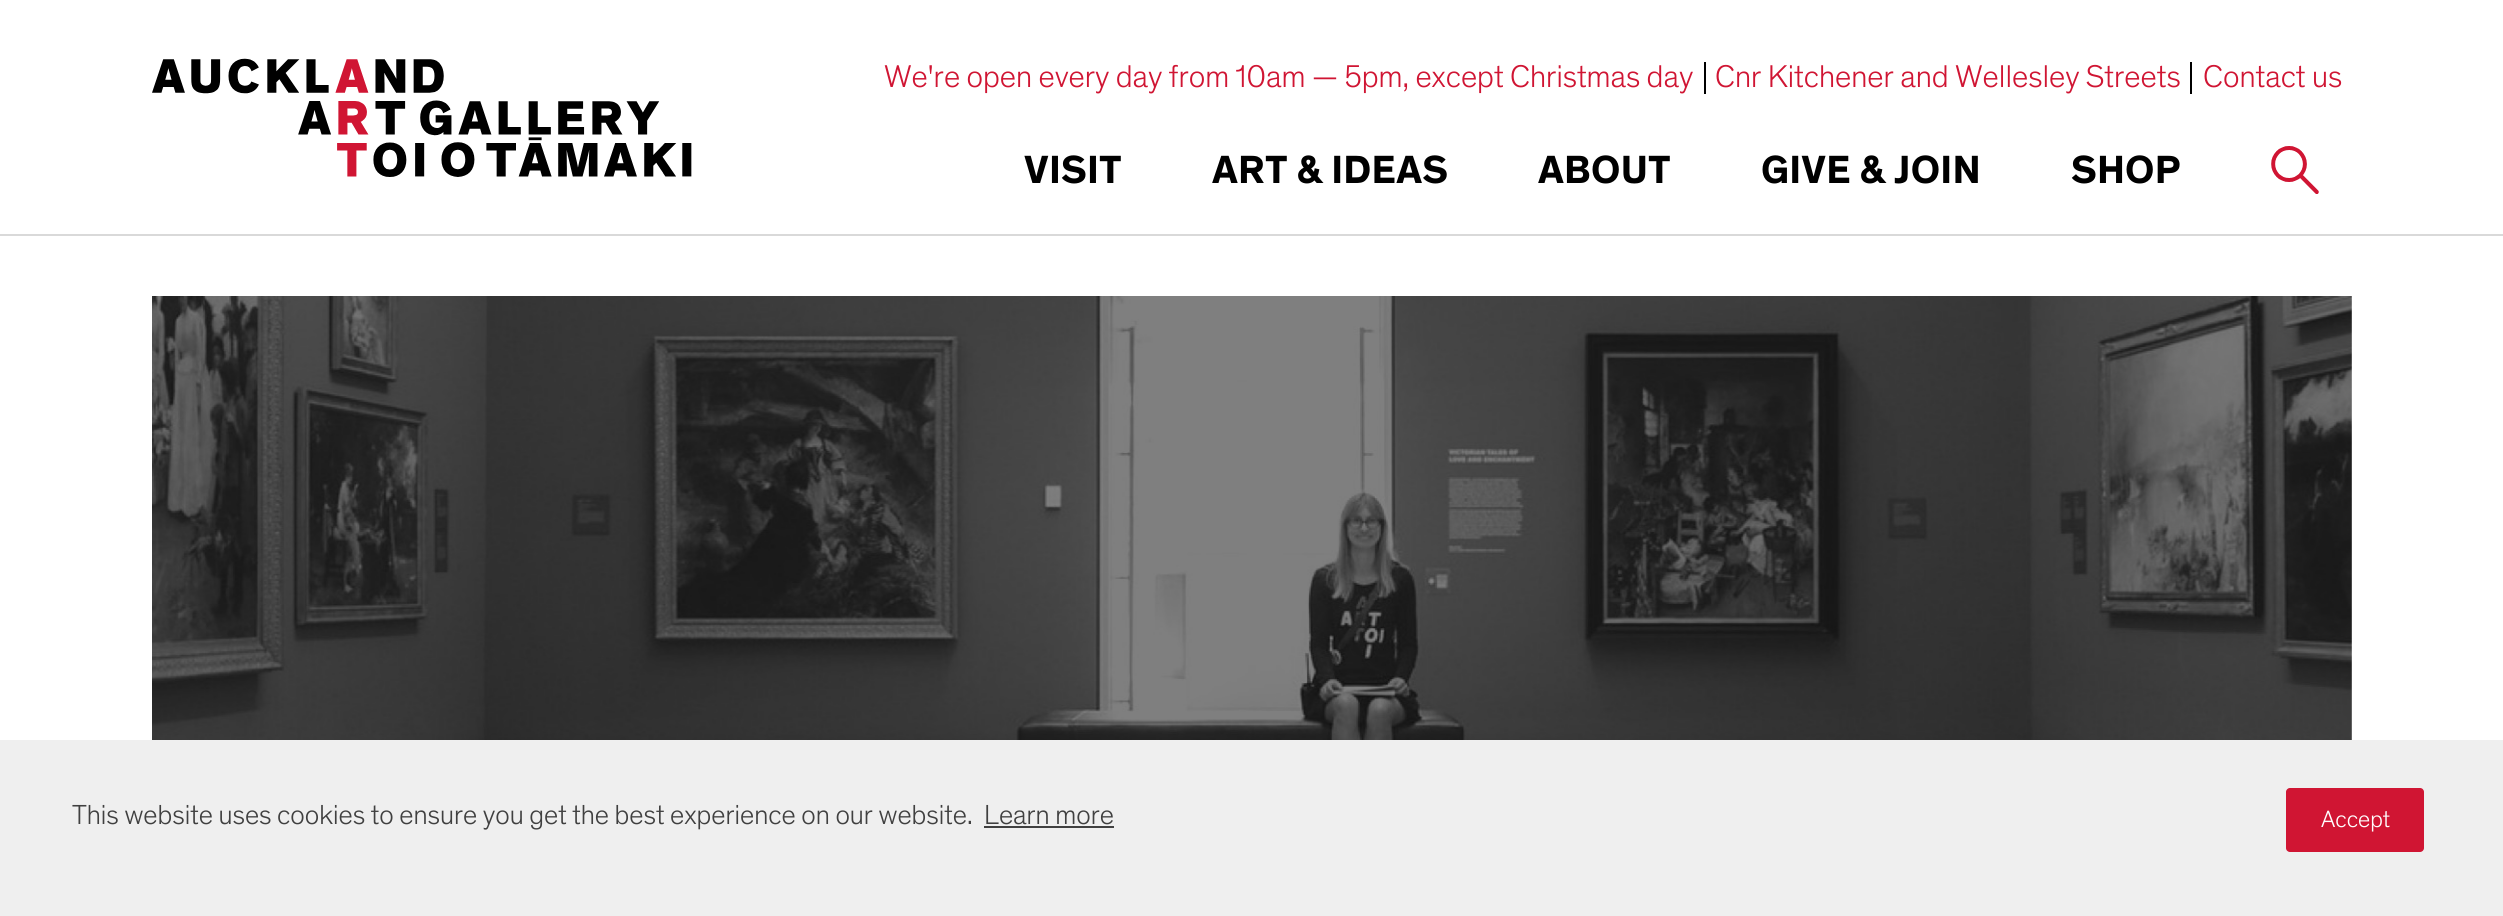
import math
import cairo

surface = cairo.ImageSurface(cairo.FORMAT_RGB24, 2503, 916)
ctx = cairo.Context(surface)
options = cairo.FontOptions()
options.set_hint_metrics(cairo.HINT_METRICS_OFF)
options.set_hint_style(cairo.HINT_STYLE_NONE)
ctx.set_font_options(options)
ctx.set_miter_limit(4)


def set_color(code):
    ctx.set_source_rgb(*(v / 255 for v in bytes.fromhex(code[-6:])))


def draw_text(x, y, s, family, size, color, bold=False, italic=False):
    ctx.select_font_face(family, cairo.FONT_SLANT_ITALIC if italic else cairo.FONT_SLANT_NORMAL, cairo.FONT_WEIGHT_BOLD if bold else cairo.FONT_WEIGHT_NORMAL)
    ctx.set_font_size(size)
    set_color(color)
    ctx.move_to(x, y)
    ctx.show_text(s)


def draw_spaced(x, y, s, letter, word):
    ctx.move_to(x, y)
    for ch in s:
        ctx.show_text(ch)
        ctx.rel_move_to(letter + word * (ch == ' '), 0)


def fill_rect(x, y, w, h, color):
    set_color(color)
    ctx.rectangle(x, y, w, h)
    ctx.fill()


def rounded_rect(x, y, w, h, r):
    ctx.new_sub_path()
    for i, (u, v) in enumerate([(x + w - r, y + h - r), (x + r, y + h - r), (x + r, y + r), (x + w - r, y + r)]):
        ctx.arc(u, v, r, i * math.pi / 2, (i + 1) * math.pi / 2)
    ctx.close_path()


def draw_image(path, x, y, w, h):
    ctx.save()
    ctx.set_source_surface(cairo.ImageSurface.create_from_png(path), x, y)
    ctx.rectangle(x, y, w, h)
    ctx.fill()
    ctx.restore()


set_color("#ffffff")
ctx.paint()
fill_rect(0, 234, 2503, 2, "#d9d9d9")
draw_image("assets/img1.png", 152, 58, 540, 119)
fill_rect(1704, 62, 2, 32, "#000000")
draw_text(884, 87, "We're open every day from 10am — 5pm, except Christmas day", "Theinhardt", 32, "#d01533")
fill_rect(2190, 62, 2, 32, "#000000")
draw_text(1715, 87, "Cnr Kitchener and Wellesley Streets", "Theinhardt", 32, "#d01533")
draw_text(2203, 87, "Contact us", "Theinhardt", 32, "#d01533")
ctx.select_font_face("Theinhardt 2")
ctx.set_font_size(40)
set_color("#000000")
draw_spaced(1024, 183, "VISIT", 0.25, 0)
draw_spaced(1212, 183, "ART & IDEAS", 0.25, 0)
draw_spaced(1538, 183, "ABOUT", 0.25, 0)
draw_spaced(1761, 183, "GIVE & JOIN", 0.25, 0)
draw_spaced(2071, 183, "SHOP", 0.25, 0)
draw_image("assets/img2.png", 2271, 146, 48, 48)
draw_image("assets/img3.png", 152, 296, 2200, 444)
fill_rect(0, 740, 2503, 176, "#efefef")
draw_text(72, 824, "This website uses cookies to ensure you get the best experience on our website.", "Theinhardt", 28, "#404040")
draw_text(984, 824, "Learn more", "Theinhardt", 28, "#404040")
fill_rect(984, 826, 130, 2, "#404040")
set_color("#d01533")
rounded_rect(2286, 788, 138, 64, 4)
ctx.fill()
draw_text(2321, 827, "Accept", "Theinhardt", 24, "#ffffff")
surface.write_to_png("output.png")
